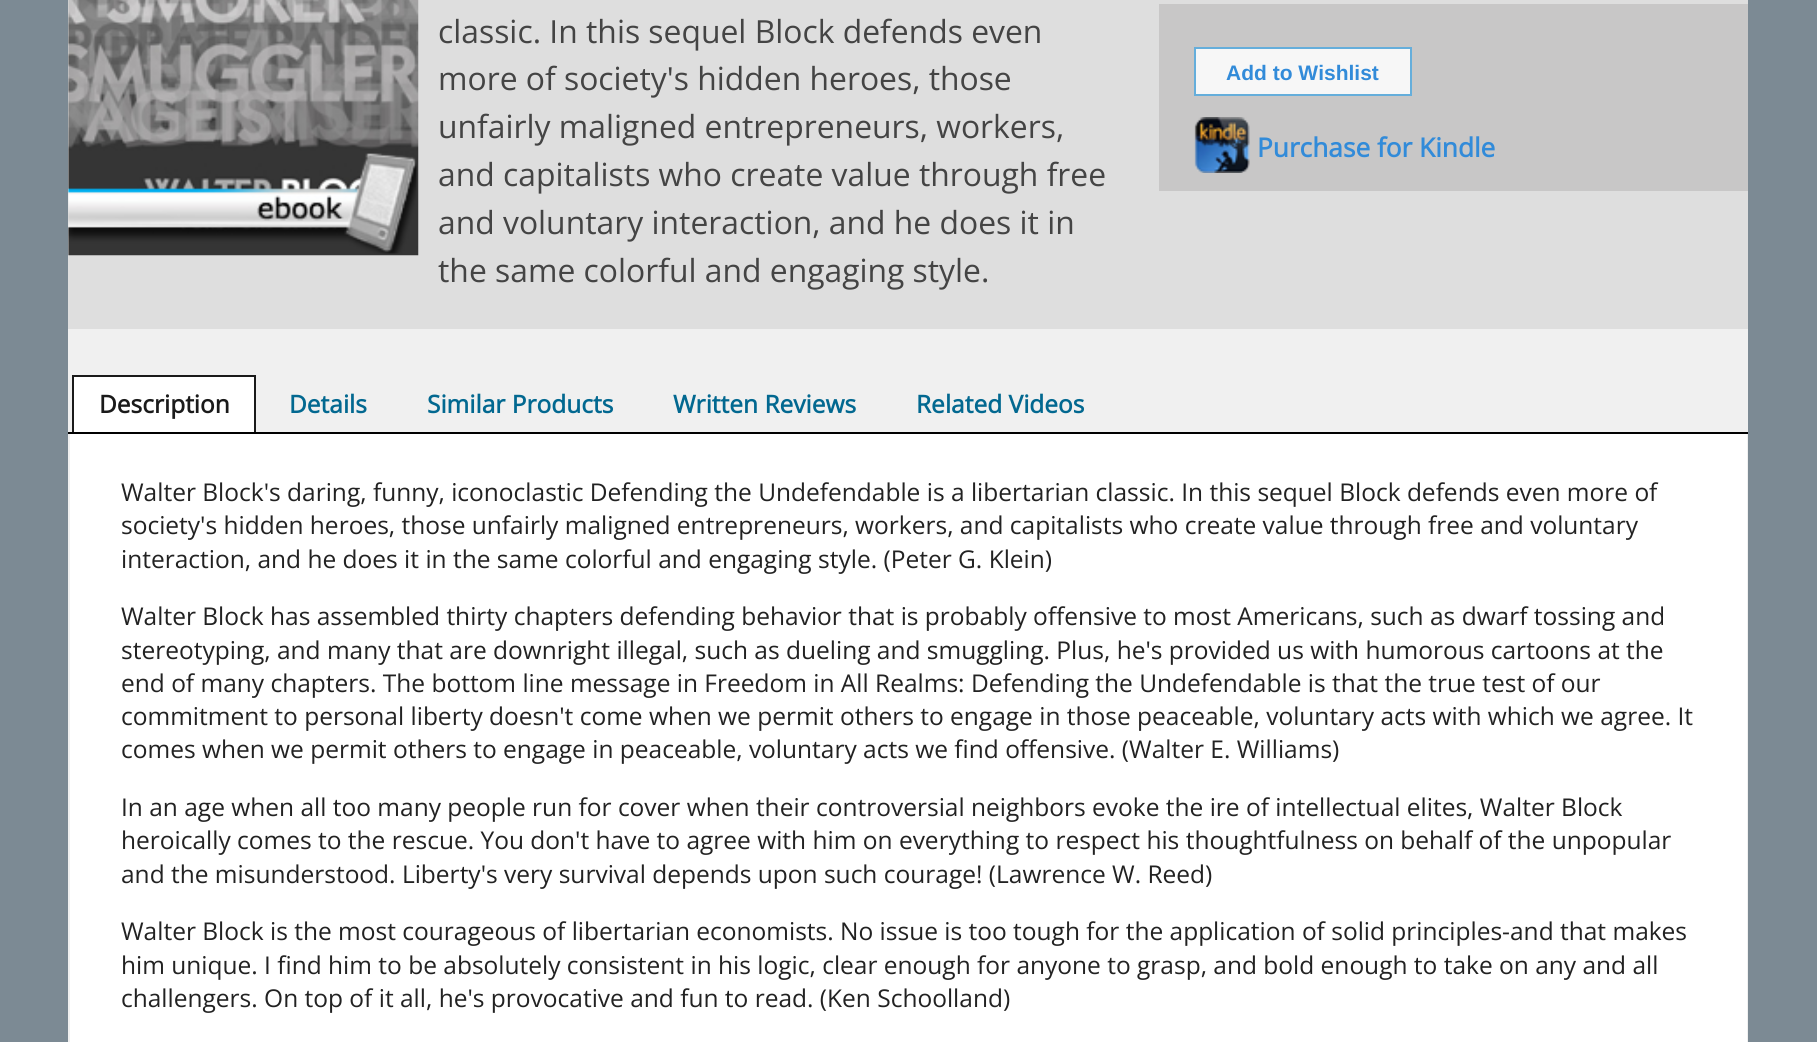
import math
import cairo

surface = cairo.ImageSurface(cairo.FORMAT_RGB24, 1817, 1042)
ctx = cairo.Context(surface)
options = cairo.FontOptions()
options.set_hint_metrics(cairo.HINT_METRICS_OFF)
options.set_hint_style(cairo.HINT_STYLE_NONE)
ctx.set_font_options(options)
ctx.set_miter_limit(4)


def set_color(code):
    ctx.set_source_rgb(*(v / 255 for v in bytes.fromhex(code[-6:])))


def draw_text(x, y, s, family, size, color, bold=False, italic=False):
    ctx.select_font_face(family, cairo.FONT_SLANT_ITALIC if italic else cairo.FONT_SLANT_NORMAL, cairo.FONT_WEIGHT_BOLD if bold else cairo.FONT_WEIGHT_NORMAL)
    ctx.set_font_size(size)
    set_color(color)
    ctx.move_to(x, y)
    ctx.show_text(s)


def fill_rect(x, y, w, h, color):
    set_color(color)
    ctx.rectangle(x, y, w, h)
    ctx.fill()


def draw_image(path, x, y, w, h):
    ctx.save()
    ctx.set_source_surface(cairo.ImageSurface.create_from_png(path), x, y)
    ctx.rectangle(x, y, w, h)
    ctx.fill()
    ctx.restore()


set_color("#7c8a94")
ctx.paint()
fill_rect(68, 434, 1680, 608, "#f0f0f0")
fill_rect(68, 0, 1680, 329, "#dedede")
draw_image("assets/img1.png", 68, 0, 351, 256)
draw_text(438, 43, "classic. In this sequel Block defends even", "Open Sans", 31.85, "#444444")
draw_text(438, 90, "more of society's hidden heroes, those", "Open Sans", 31.85, "#444444")
draw_text(438, 138, "unfairly maligned entrepreneurs, workers,", "Open Sans", 31.85, "#444444")
draw_text(438, 186, "and capitalists who create value through free", "Open Sans", 31.85, "#444444")
draw_text(438, 234, "and voluntary interaction, and he does it in", "Open Sans", 31.85, "#444444")
draw_text(438, 282, "the same colorful and engaging style.", "Open Sans", 31.85, "#444444")
fill_rect(1159, 4, 589, 187, "#c8c7c7")
set_color("#f7f7f7")
ctx.rectangle(1195, 48, 216, 47)
ctx.fill_preserve()
set_color("#65aedb")
ctx.stroke()
draw_text(1226, 80, "Add to Wishlist", "Liberation Sans", 21, "#328bd9", bold=True)
draw_image("assets/img2.png", 1194, 117, 56, 56)
draw_text(1257, 157, "Purchase for Kindle", "Open Sans", 26.25, "#328bd9", bold=True)
fill_rect(70, 434, 1677, 608, "#ffffff")
fill_rect(68, 329, 1680, 103, "#f0f0f0")
fill_rect(68, 432, 1680, 2, "#000000")
fill_rect(74, 377, 180, 55, "#ffffff")
fill_rect(72, 375, 184, 2, "#1a1a1a")
fill_rect(254, 375, 2, 57, "#1a1a1a")
fill_rect(72, 375, 2, 57, "#1a1a1a")
draw_text(99, 413, "Description", "Open Sans", 24.5, "#1a1a1a", bold=True)
draw_text(289, 413, "Details", "Open Sans", 24.5, "#026890", bold=True)
draw_text(427, 413, "Similar Products", "Open Sans", 24.5, "#026890", bold=True)
draw_text(673, 413, "Written Reviews", "Open Sans", 24.5, "#026890", bold=True)
draw_text(916, 413, "Related Videos", "Open Sans", 24.5, "#026890", bold=True)
draw_text(121, 501, "Walter Block's daring, funny, iconoclastic Defending the Undefendable is a libertarian classic. In this sequel Block defends even more of", "Open Sans", 24.5, "#222222")
draw_text(121, 534, "society's hidden heroes, those unfairly maligned entrepreneurs, workers, and capitalists who create value through free and voluntary", "Open Sans", 24.5, "#222222")
draw_text(121, 568, "interaction, and he does it in the same colorful and engaging style. (Peter G. Klein)", "Open Sans", 24.5, "#222222")
draw_text(121, 625, "Walter Block has assembled thirty chapters defending behavior that is probably offensive to most Americans, such as dwarf tossing and", "Open Sans", 24.5, "#222222")
draw_text(121, 659, "stereotyping, and many that are downright illegal, such as dueling and smuggling. Plus, he's provided us with humorous cartoons at the", "Open Sans", 24.5, "#222222")
draw_text(121, 692, "end of many chapters. The bottom line message in Freedom in All Realms: Defending the Undefendable is that the true test of our", "Open Sans", 24.5, "#222222")
draw_text(121, 725, "commitment to personal liberty doesn't come when we permit others to engage in those peaceable, voluntary acts with which we agree. It", "Open Sans", 24.5, "#222222")
draw_text(121, 758, "comes when we permit others to engage in peaceable, voluntary acts we find offensive. (Walter E. Williams)", "Open Sans", 24.5, "#222222")
draw_text(121, 816, "In an age when all too many people run for cover when their controversial neighbors evoke the ire of intellectual elites, Walter Block", "Open Sans", 24.5, "#222222")
draw_text(121, 849, "heroically comes to the rescue. You don't have to agree with him on everything to respect his thoughtfulness on behalf of the unpopular", "Open Sans", 24.5, "#222222")
draw_text(121, 883, "and the misunderstood. Liberty's very survival depends upon such courage! (Lawrence W. Reed)", "Open Sans", 24.5, "#222222")
draw_text(121, 940, "Walter Block is the most courageous of libertarian economists. No issue is too tough for the application of solid principles-and that makes", "Open Sans", 24.5, "#222222")
draw_text(121, 974, "him unique. I find him to be absolutely consistent in his logic, clear enough for anyone to grasp, and bold enough to take on any and all", "Open Sans", 24.5, "#222222")
draw_text(121, 1007, "challengers. On top of it all, he's provocative and fun to read. (Ken Schoolland)", "Open Sans", 24.5, "#222222")
surface.write_to_png("output.png")
